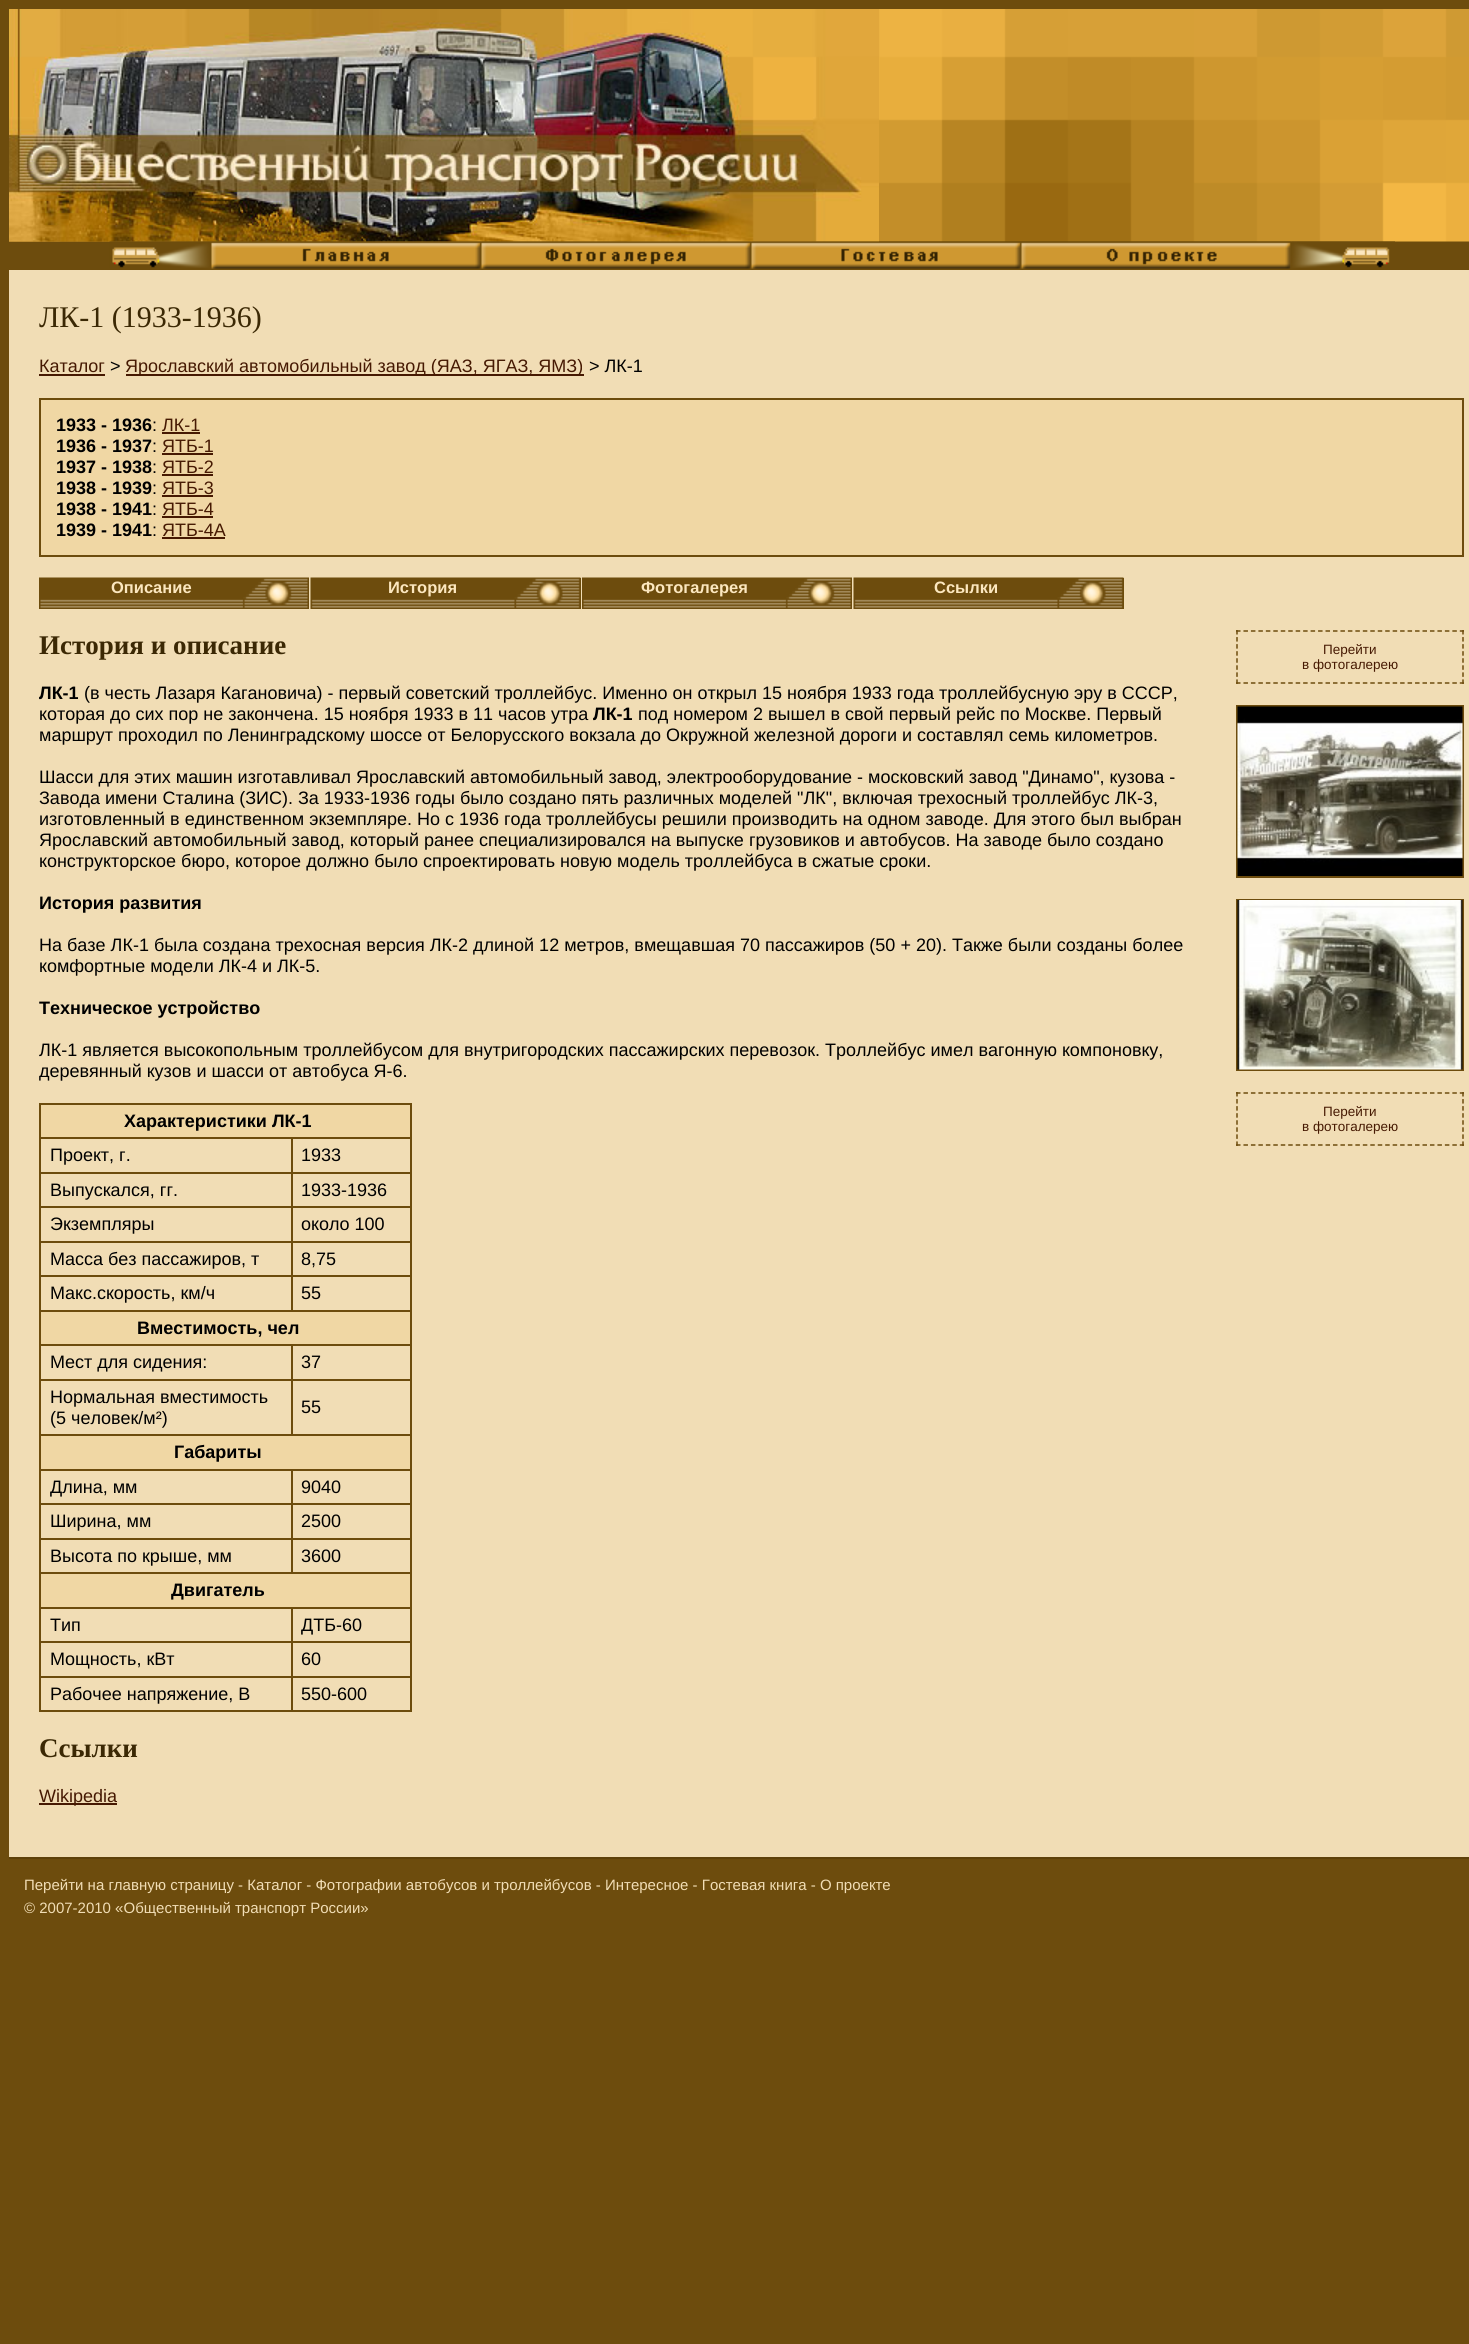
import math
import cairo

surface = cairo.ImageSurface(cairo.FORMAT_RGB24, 1469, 2344)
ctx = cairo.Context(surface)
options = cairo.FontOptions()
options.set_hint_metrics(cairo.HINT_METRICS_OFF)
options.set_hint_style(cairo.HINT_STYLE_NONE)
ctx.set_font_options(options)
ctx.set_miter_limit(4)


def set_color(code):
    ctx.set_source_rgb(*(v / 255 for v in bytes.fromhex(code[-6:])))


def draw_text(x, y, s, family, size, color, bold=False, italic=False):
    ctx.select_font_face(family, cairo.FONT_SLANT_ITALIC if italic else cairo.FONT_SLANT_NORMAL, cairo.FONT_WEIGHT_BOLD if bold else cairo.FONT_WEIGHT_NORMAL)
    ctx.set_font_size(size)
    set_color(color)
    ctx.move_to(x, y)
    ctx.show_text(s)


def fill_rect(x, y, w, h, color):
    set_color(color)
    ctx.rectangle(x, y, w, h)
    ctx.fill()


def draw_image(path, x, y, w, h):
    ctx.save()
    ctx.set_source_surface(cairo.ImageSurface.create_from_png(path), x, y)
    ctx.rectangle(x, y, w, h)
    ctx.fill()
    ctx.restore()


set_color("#6d4c0d")
ctx.paint()
draw_image("assets/img1.png", 9, 9, 1460, 233)
draw_image("assets/img2.png", 9, 9, 870, 233)
draw_image("assets/img3.png", 109, 241, 103, 27)
draw_image("assets/img4.png", 211, 241, 271, 28)
draw_image("assets/img5.png", 481, 241, 271, 28)
draw_image("assets/img6.png", 751, 241, 271, 28)
draw_image("assets/img7.png", 1021, 241, 271, 28)
draw_image("assets/img8.png", 1291, 241, 104, 27)
fill_rect(9, 270, 1460, 1587, "#f1ddb5")
draw_text(39, 327, "ЛК-1 (1933-1936)", "Liberation Serif", 30, "#3b2804")
draw_text(39, 372, "Каталог", "Liberation Sans", 18, "#461902")
fill_rect(39, 374, 66, 2, "#461902")
draw_text(110, 372, ">", "Liberation Sans", 18, "#000000")
fill_rect(126, 374, 458, 2, "#461902")
draw_text(125, 372, "Ярославский автомобильный завод (ЯАЗ, ЯГАЗ, ЯМЗ)", "Liberation Sans", 18, "#461902")
draw_text(589, 372, "> ЛК-1", "Liberation Sans", 18, "#000000")
set_color("#f0d7a4")
ctx.rectangle(40, 399, 1423, 157)
ctx.fill_preserve()
set_color("#6d4c0d")
ctx.stroke()
draw_text(56, 431, "1933 - 1936", "Liberation Sans", 18, "#000000", bold=True)
draw_text(152, 431, ":", "Liberation Sans", 18, "#000000")
draw_text(162, 431, "ЛК-1", "Liberation Sans", 18, "#461902")
fill_rect(162, 432, 38, 2, "#461902")
draw_text(56, 452, "1936 - 1937", "Liberation Sans", 18, "#000000", bold=True)
draw_text(152, 452, ":", "Liberation Sans", 18, "#000000")
draw_text(162, 452, "ЯТБ-1", "Liberation Sans", 18, "#461902")
fill_rect(162, 453, 51, 2, "#461902")
draw_text(56, 473, "1937 - 1938", "Liberation Sans", 18, "#000000", bold=True)
draw_text(152, 473, ":", "Liberation Sans", 18, "#000000")
draw_text(162, 473, "ЯТБ-2", "Liberation Sans", 18, "#461902")
fill_rect(162, 474, 51, 2, "#461902")
draw_text(56, 494, "1938 - 1939", "Liberation Sans", 18, "#000000", bold=True)
draw_text(152, 494, ":", "Liberation Sans", 18, "#000000")
draw_text(162, 494, "ЯТБ-3", "Liberation Sans", 18, "#461902")
fill_rect(162, 495, 51, 2, "#461902")
draw_text(56, 515, "1938 - 1941", "Liberation Sans", 18, "#000000", bold=True)
draw_text(152, 515, ":", "Liberation Sans", 18, "#000000")
draw_text(162, 515, "ЯТБ-4", "Liberation Sans", 18, "#461902")
fill_rect(162, 516, 51, 2, "#461902")
draw_text(56, 536, "1939 - 1941", "Liberation Sans", 18, "#000000", bold=True)
draw_text(152, 536, ":", "Liberation Sans", 18, "#000000")
draw_text(162, 536, "ЯТБ-4А", "Liberation Sans", 18, "#461902")
fill_rect(162, 537, 63, 2, "#461902")
fill_rect(39, 608, 270, 1, "#6d4c0d")
draw_image("assets/img9.png", 39, 577, 270, 31)
draw_text(111, 593, "Описание", "Liberation Sans", 16.5, "#fce7bf", bold=True)
fill_rect(580, 578, 1, 31, "#6d4c0d")
draw_image("assets/img10.png", 310, 577, 271, 32)
draw_text(388, 593, "История", "Liberation Sans", 16.5, "#fce7bf", bold=True)
fill_rect(582, 608, 270, 1, "#6d4c0d")
draw_image("assets/img11.png", 582, 577, 270, 31)
draw_text(641, 593, "Фотогалерея", "Liberation Sans", 16.5, "#fce7bf", bold=True)
fill_rect(1123, 578, 1, 31, "#6d4c0d")
draw_image("assets/img10.png", 853, 577, 271, 32)
draw_text(934, 593, "Ссылки", "Liberation Sans", 16.5, "#fce7bf", bold=True)
draw_text(39, 654, "История и описание", "Liberation Serif", 27, "#3b2804", bold=True)
ctx.new_path()
ctx.move_to(1236, 631)
ctx.line_to(1464, 631)
set_color("#6d4c0d")
ctx.set_line_width(1.5)
ctx.set_dash([4.5, 2.96])
ctx.stroke()
ctx.new_path()
ctx.move_to(1463, 630)
ctx.line_to(1463, 684)
ctx.set_dash([4.5, 2.56])
ctx.stroke()
ctx.new_path()
ctx.move_to(1236, 683)
ctx.line_to(1464, 683)
ctx.set_dash([4.5, 2.96])
ctx.stroke()
ctx.new_path()
ctx.move_to(1237, 630)
ctx.line_to(1237, 684)
ctx.set_dash([4.5, 2.56])
ctx.stroke()
draw_text(1323, 654, "Перейти", "Liberation Sans", 13.5, "#461902")
draw_text(1302, 669, "в фотогалерею", "Liberation Sans", 13.5, "#461902")
ctx.rectangle(1237, 706, 226, 171)
set_color("#6d4c0d")
ctx.set_line_width(2)
ctx.set_dash([])
ctx.stroke()
draw_image("assets/img12.png", 1237, 706, 226, 170)
ctx.rectangle(1237, 900, 226, 170)
ctx.stroke()
draw_image("assets/img13.png", 1237, 900, 226, 170)
ctx.new_path()
ctx.move_to(1236, 1093)
ctx.line_to(1464, 1093)
ctx.set_line_width(1.5)
ctx.set_dash([4.5, 2.96])
ctx.stroke()
ctx.new_path()
ctx.move_to(1463, 1092)
ctx.line_to(1463, 1146)
ctx.set_dash([4.5, 2.56])
ctx.stroke()
ctx.new_path()
ctx.move_to(1236, 1145)
ctx.line_to(1464, 1145)
ctx.set_dash([4.5, 2.96])
ctx.stroke()
ctx.new_path()
ctx.move_to(1237, 1092)
ctx.line_to(1237, 1146)
ctx.set_dash([4.5, 2.56])
ctx.stroke()
draw_text(1323, 1116, "Перейти", "Liberation Sans", 13.5, "#461902")
draw_text(1302, 1131, "в фотогалерею", "Liberation Sans", 13.5, "#461902")
draw_text(39, 699, "ЛК-1", "Liberation Sans", 18, "#000000", bold=True)
draw_text(84, 699, "(в честь Лазаря Кагановича) - первый советский троллейбус. Именно он открыл 15 ноября 1933 года троллейбусную эру в СССР,", "Liberation Sans", 18, "#000000")
draw_text(39, 720, "которая до сих пор не закончена. 15 ноября 1933 в 11 часов утра", "Liberation Sans", 18, "#000000")
draw_text(593, 720, "ЛК-1", "Liberation Sans", 18, "#000000", bold=True)
draw_text(638, 720, "под номером 2 вышел в свой первый рейс по Москве. Первый", "Liberation Sans", 18, "#000000")
draw_text(39, 741, "маршрут проходил по Ленинградскому шоссе от Белорусского вокзала до Окружной железной дороги и составлял семь километров.", "Liberation Sans", 18, "#000000")
draw_text(39, 783, "Шасси для этих машин изготавливал Ярославский автомобильный завод, электрооборудование - московский завод \"Динамо\", кузова -", "Liberation Sans", 18, "#000000")
draw_text(39, 804, "Завода имени Сталина (ЗИС). За 1933-1936 годы было создано пять различных моделей \"ЛК\", включая трехосный троллейбус ЛК-3,", "Liberation Sans", 18, "#000000")
draw_text(39, 825, "изготовленный в единственном экземпляре. Но с 1936 года троллейбусы решили производить на одном заводе. Для этого был выбран", "Liberation Sans", 18, "#000000")
draw_text(39, 846, "Ярославский автомобильный завод, который ранее специализировался на выпуске грузовиков и автобусов. На заводе было создано", "Liberation Sans", 18, "#000000")
draw_text(39, 867, "конструкторское бюро, которое должно было спроектировать новую модель троллейбуса в сжатые сроки.", "Liberation Sans", 18, "#000000")
draw_text(39, 909, "История развития", "Liberation Sans", 18, "#000000", bold=True)
draw_text(39, 951, "На базе ЛК-1 была создана трехосная версия ЛК-2 длиной 12 метров, вмещавшая 70 пассажиров (50 + 20). Также были созданы более", "Liberation Sans", 18, "#000000")
draw_text(39, 972, "комфортные модели ЛК-4 и ЛК-5.", "Liberation Sans", 18, "#000000")
draw_text(39, 1014, "Техническое устройство", "Liberation Sans", 18, "#000000", bold=True)
draw_text(39, 1056, "ЛК-1 является высокопольным троллейбусом для внутригородских пассажирских перевозок. Троллейбус имел вагонную компоновку,", "Liberation Sans", 18, "#000000")
draw_text(39, 1077, "деревянный кузов и шасси от автобуса Я-6.", "Liberation Sans", 18, "#000000")
fill_rect(39, 1103, 372, 2, "#6d4c0d")
fill_rect(410, 1103, 2, 609, "#6d4c0d")
fill_rect(39, 1710, 372, 2, "#6d4c0d")
fill_rect(39, 1103, 2, 609, "#6d4c0d")
fill_rect(41, 1105, 369, 32, "#f0d7a4")
draw_text(124, 1127, "Характеристики ЛК-1", "Liberation Sans", 18, "#000000", bold=True)
fill_rect(291, 1137, 120, 2, "#6d4c0d")
fill_rect(291, 1172, 120, 2, "#6d4c0d")
fill_rect(291, 1206, 120, 2, "#6d4c0d")
fill_rect(291, 1241, 120, 2, "#6d4c0d")
fill_rect(291, 1275, 120, 2, "#6d4c0d")
fill_rect(39, 1310, 372, 2, "#6d4c0d")
fill_rect(291, 1275, 2, 36, "#6d4c0d")
fill_rect(39, 1275, 254, 2, "#6d4c0d")
fill_rect(291, 1241, 2, 36, "#6d4c0d")
fill_rect(39, 1241, 254, 2, "#6d4c0d")
fill_rect(291, 1206, 2, 36, "#6d4c0d")
fill_rect(39, 1206, 254, 2, "#6d4c0d")
fill_rect(291, 1172, 2, 36, "#6d4c0d")
fill_rect(39, 1172, 254, 2, "#6d4c0d")
fill_rect(291, 1137, 2, 36, "#6d4c0d")
fill_rect(39, 1137, 254, 2, "#6d4c0d")
draw_text(50, 1161, "Проект, г.", "Liberation Sans", 18, "#000000")
draw_text(301, 1161, "1933", "Liberation Sans", 18, "#000000")
draw_text(50, 1196, "Выпускался, гг.", "Liberation Sans", 18, "#000000")
draw_text(301, 1196, "1933-1936", "Liberation Sans", 18, "#000000")
draw_text(50, 1230, "Экземпляры", "Liberation Sans", 18, "#000000")
draw_text(301, 1230, "около 100", "Liberation Sans", 18, "#000000")
draw_text(50, 1265, "Масса без пассажиров, т", "Liberation Sans", 18, "#000000")
draw_text(301, 1265, "8,75", "Liberation Sans", 18, "#000000")
draw_text(50, 1299, "Макс.скорость, км/ч", "Liberation Sans", 18, "#000000")
draw_text(301, 1299, "55", "Liberation Sans", 18, "#000000")
fill_rect(41, 1312, 369, 32, "#f0d7a4")
draw_text(137, 1334, "Вместимость, чел", "Liberation Sans", 18, "#000000", bold=True)
fill_rect(291, 1344, 120, 2, "#6d4c0d")
fill_rect(291, 1379, 120, 2, "#6d4c0d")
fill_rect(39, 1434, 372, 2, "#6d4c0d")
fill_rect(291, 1379, 2, 57, "#6d4c0d")
fill_rect(39, 1379, 254, 2, "#6d4c0d")
fill_rect(291, 1344, 2, 36, "#6d4c0d")
fill_rect(39, 1344, 254, 2, "#6d4c0d")
draw_text(50, 1368, "Мест для сидения:", "Liberation Sans", 18, "#000000")
draw_text(301, 1368, "37", "Liberation Sans", 18, "#000000")
draw_text(50, 1403, "Нормальная вместимость", "Liberation Sans", 18, "#000000")
draw_text(50, 1424, "(5 человек/м²)", "Liberation Sans", 18, "#000000")
draw_text(301, 1413, "55", "Liberation Sans", 18, "#000000")
fill_rect(41, 1436, 369, 33, "#f0d7a4")
draw_text(174, 1458, "Габариты", "Liberation Sans", 18, "#000000", bold=True)
fill_rect(291, 1469, 120, 2, "#6d4c0d")
fill_rect(291, 1503, 120, 2, "#6d4c0d")
fill_rect(291, 1538, 120, 2, "#6d4c0d")
fill_rect(39, 1572, 372, 2, "#6d4c0d")
fill_rect(291, 1538, 2, 36, "#6d4c0d")
fill_rect(39, 1538, 254, 2, "#6d4c0d")
fill_rect(291, 1503, 2, 36, "#6d4c0d")
fill_rect(39, 1503, 254, 2, "#6d4c0d")
fill_rect(291, 1469, 2, 36, "#6d4c0d")
fill_rect(39, 1469, 254, 2, "#6d4c0d")
draw_text(50, 1493, "Длина, мм", "Liberation Sans", 18, "#000000")
draw_text(301, 1493, "9040", "Liberation Sans", 18, "#000000")
draw_text(50, 1527, "Ширина, мм", "Liberation Sans", 18, "#000000")
draw_text(301, 1527, "2500", "Liberation Sans", 18, "#000000")
draw_text(50, 1562, "Высота по крыше, мм", "Liberation Sans", 18, "#000000")
draw_text(301, 1562, "3600", "Liberation Sans", 18, "#000000")
fill_rect(41, 1574, 369, 33, "#f0d7a4")
draw_text(171, 1596, "Двигатель", "Liberation Sans", 18, "#000000", bold=True)
fill_rect(291, 1607, 120, 2, "#6d4c0d")
fill_rect(291, 1641, 120, 2, "#6d4c0d")
fill_rect(291, 1676, 120, 2, "#6d4c0d")
fill_rect(291, 1676, 2, 36, "#6d4c0d")
fill_rect(39, 1676, 254, 2, "#6d4c0d")
fill_rect(291, 1641, 2, 36, "#6d4c0d")
fill_rect(39, 1641, 254, 2, "#6d4c0d")
fill_rect(291, 1607, 2, 36, "#6d4c0d")
fill_rect(39, 1607, 254, 2, "#6d4c0d")
draw_text(50, 1631, "Тип", "Liberation Sans", 18, "#000000")
draw_text(301, 1631, "ДТБ-60", "Liberation Sans", 18, "#000000")
draw_text(50, 1665, "Мощность, кВт", "Liberation Sans", 18, "#000000")
draw_text(301, 1665, "60", "Liberation Sans", 18, "#000000")
draw_text(50, 1700, "Рабочее напряжение, В", "Liberation Sans", 18, "#000000")
draw_text(301, 1700, "550-600", "Liberation Sans", 18, "#000000")
draw_text(39, 1757, "Ссылки", "Liberation Serif", 27, "#3b2804", bold=True)
fill_rect(39, 1803, 78, 2, "#461902")
draw_text(39, 1802, "Wikipedia", "Liberation Sans", 18, "#461902")
fill_rect(9, 1857, 1460, 2, "#5e410a")
draw_text(24, 1890, "Перейти на главную страницу - Каталог - Фотографии автобусов и троллейбусов - Интересное - Гостевая книга - О проекте", "Liberation Sans", 15, "#f1ddb5")
draw_text(24, 1913, "© 2007-2010 «Общественный транспорт России»", "Liberation Sans", 15, "#f1ddb5")
surface.write_to_png("output.png")
